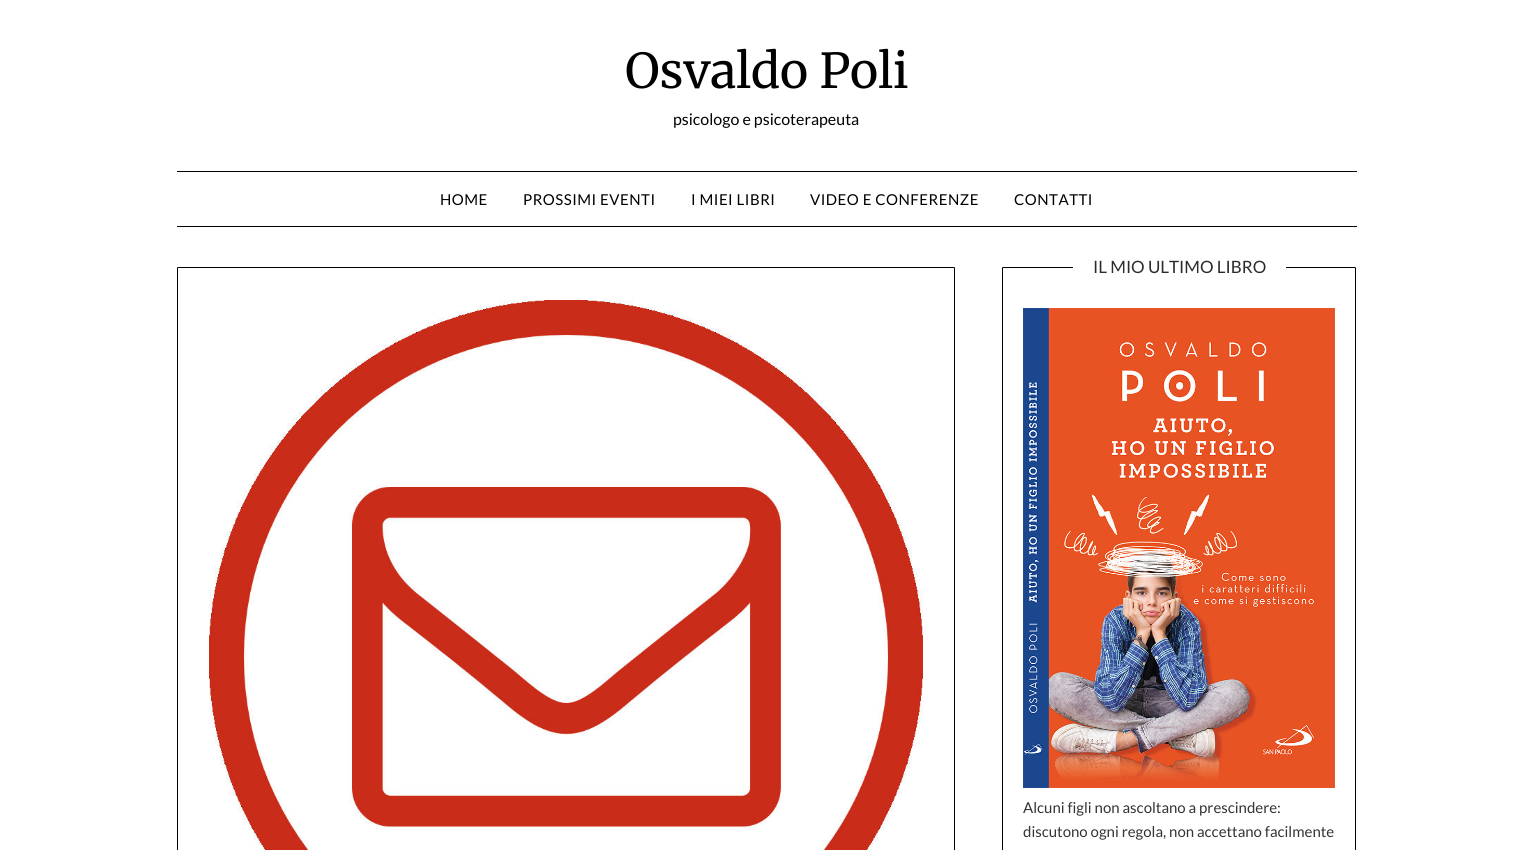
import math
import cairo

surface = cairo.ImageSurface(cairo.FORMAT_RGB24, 1533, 850)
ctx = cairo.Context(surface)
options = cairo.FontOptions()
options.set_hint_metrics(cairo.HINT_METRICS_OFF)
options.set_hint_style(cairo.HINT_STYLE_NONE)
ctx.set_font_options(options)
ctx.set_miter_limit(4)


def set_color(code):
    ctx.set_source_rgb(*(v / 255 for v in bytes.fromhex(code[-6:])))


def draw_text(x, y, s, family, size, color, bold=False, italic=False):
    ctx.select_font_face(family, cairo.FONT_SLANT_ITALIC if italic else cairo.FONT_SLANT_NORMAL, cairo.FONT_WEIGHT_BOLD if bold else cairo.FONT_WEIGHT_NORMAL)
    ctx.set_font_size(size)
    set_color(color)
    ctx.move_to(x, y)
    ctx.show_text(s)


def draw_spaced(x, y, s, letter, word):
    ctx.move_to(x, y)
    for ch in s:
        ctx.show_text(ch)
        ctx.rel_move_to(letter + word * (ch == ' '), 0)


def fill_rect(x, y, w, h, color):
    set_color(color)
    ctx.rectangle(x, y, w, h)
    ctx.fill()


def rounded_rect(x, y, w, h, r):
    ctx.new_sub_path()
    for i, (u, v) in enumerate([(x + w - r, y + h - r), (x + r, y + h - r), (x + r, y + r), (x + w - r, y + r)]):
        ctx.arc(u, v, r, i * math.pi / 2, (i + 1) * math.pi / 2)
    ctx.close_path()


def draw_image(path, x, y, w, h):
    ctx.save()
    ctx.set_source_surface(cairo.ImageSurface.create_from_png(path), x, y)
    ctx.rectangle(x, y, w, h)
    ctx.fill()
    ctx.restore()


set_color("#ffffff")
ctx.paint()
draw_text(625, 88, "Osvaldo Poli", "Merriweather", 48, "#000000")
draw_text(673, 125, "psicologo e psicoterapeuta", "Lato", 16, "#000000")
fill_rect(177, 171, 1180, 1, "#000000")
fill_rect(177, 226, 1180, 1, "#000000")
ctx.set_font_size(15)
draw_spaced(440, 205, "HOME", 0.5, 0)
draw_spaced(523, 205, "PROSSIMI EVENTI", 0.5, 0)
draw_spaced(691, 205, "I MIEI LIBRI", 0.5, 0)
draw_spaced(810, 205, "VIDEO E CONFERENZE", 0.5, 0)
draw_spaced(1014, 205, "CONTATTI", 0.5, 0)
rounded_rect(177.5, 267.5, 777, 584, 0.5)
ctx.set_line_width(1)
ctx.stroke()
draw_image("assets/img1.png", 209, 300, 714, 550)
rounded_rect(1002.5, 267.5, 353, 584, 0.5)
ctx.stroke()
fill_rect(1073, 267, 213, 1, "#ffffff")
draw_text(1093, 273, "IL MIO ULTIMO LIBRO", "Lato", 17, "#2b2b2b")
draw_image("assets/img2.png", 1023, 308, 312, 480)
draw_text(1023, 813, "Alcuni figli non ascoltano a prescindere:", "Lato", 15, "#333333")
draw_text(1023, 837, "discutono ogni regola, non accettano facilmente", "Lato", 15, "#333333")
surface.write_to_png("output.png")
